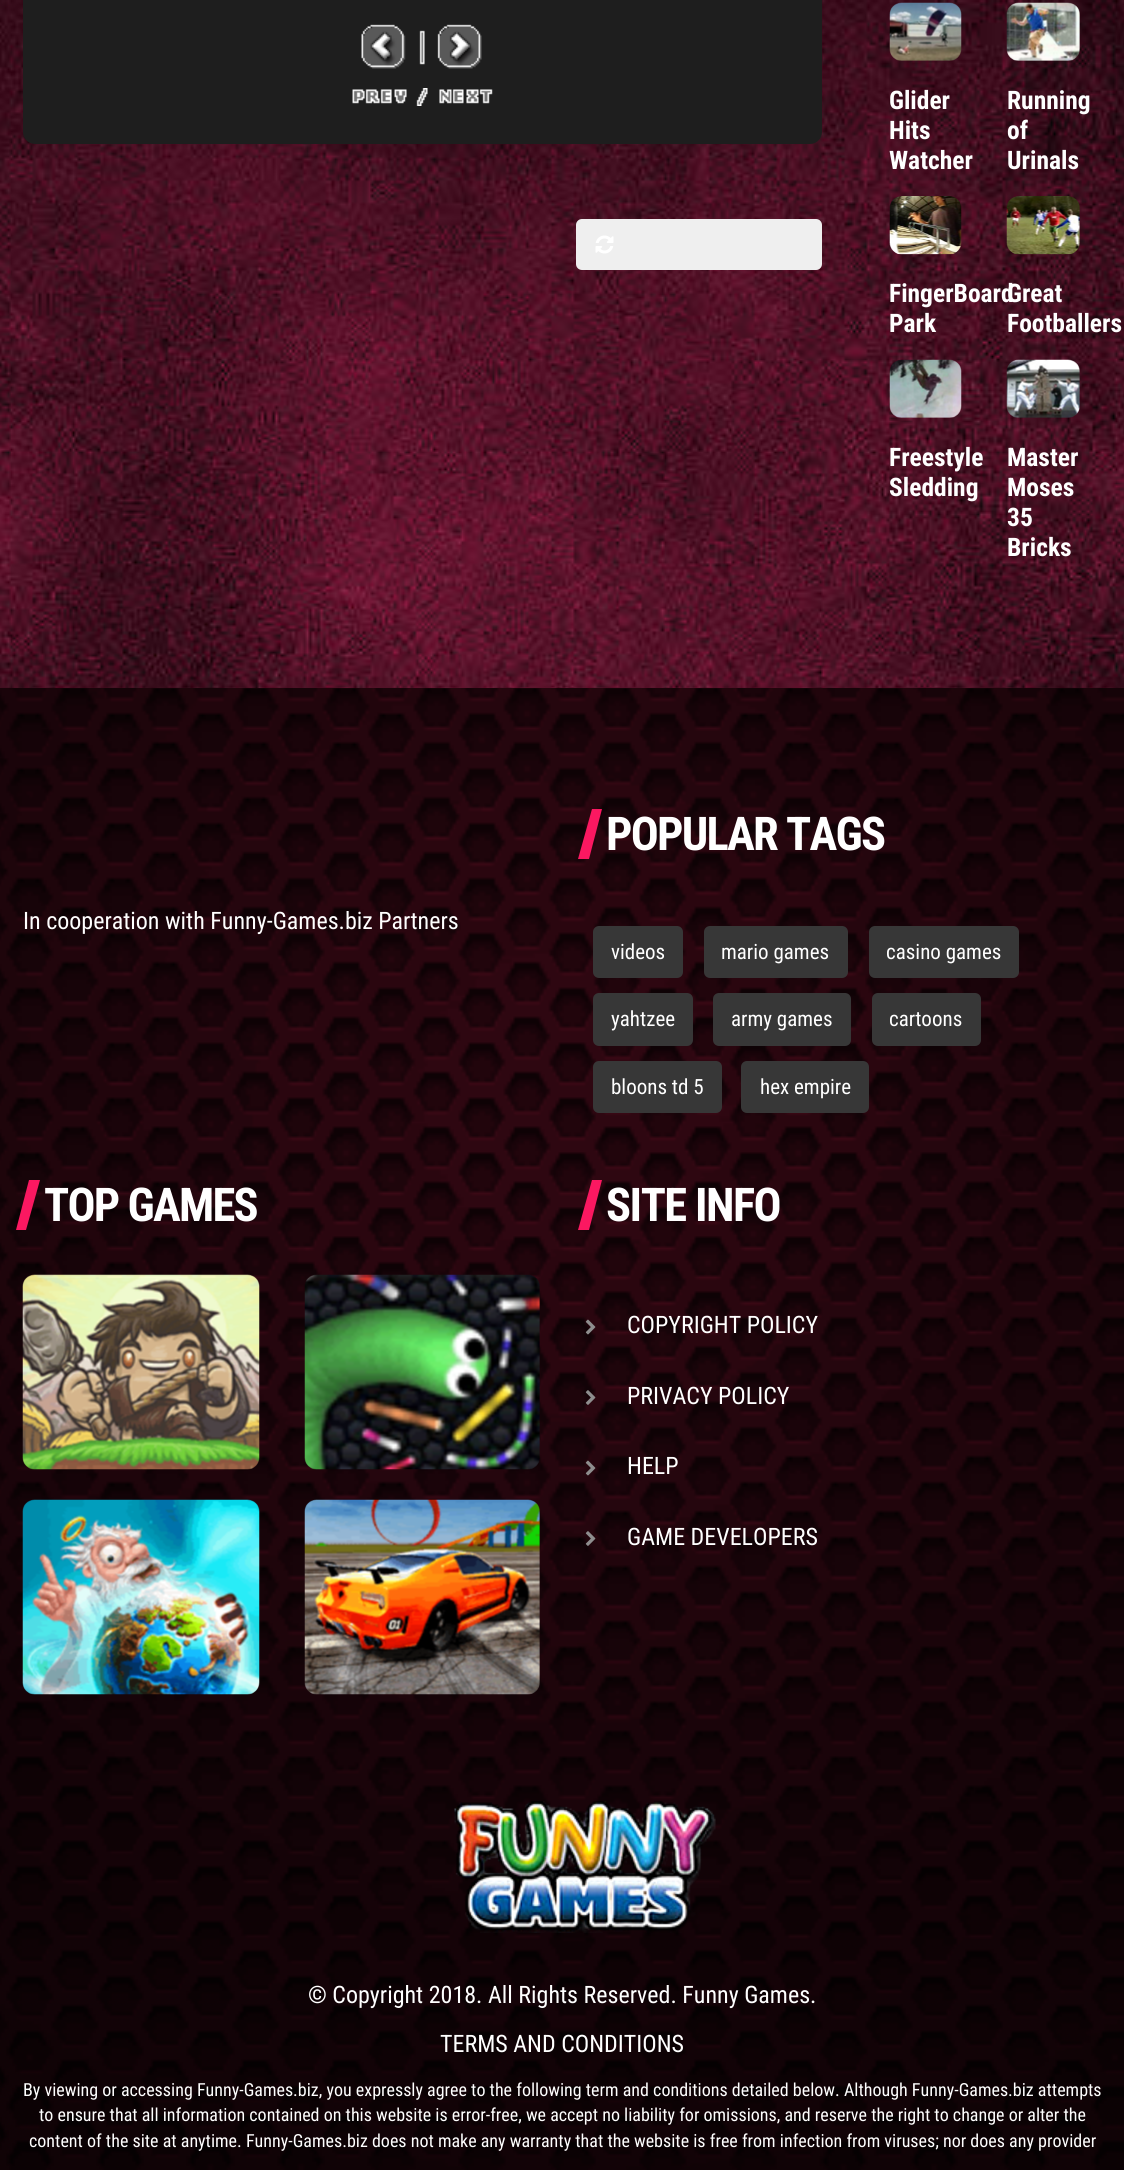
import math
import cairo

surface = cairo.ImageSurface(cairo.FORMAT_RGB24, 1124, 2170)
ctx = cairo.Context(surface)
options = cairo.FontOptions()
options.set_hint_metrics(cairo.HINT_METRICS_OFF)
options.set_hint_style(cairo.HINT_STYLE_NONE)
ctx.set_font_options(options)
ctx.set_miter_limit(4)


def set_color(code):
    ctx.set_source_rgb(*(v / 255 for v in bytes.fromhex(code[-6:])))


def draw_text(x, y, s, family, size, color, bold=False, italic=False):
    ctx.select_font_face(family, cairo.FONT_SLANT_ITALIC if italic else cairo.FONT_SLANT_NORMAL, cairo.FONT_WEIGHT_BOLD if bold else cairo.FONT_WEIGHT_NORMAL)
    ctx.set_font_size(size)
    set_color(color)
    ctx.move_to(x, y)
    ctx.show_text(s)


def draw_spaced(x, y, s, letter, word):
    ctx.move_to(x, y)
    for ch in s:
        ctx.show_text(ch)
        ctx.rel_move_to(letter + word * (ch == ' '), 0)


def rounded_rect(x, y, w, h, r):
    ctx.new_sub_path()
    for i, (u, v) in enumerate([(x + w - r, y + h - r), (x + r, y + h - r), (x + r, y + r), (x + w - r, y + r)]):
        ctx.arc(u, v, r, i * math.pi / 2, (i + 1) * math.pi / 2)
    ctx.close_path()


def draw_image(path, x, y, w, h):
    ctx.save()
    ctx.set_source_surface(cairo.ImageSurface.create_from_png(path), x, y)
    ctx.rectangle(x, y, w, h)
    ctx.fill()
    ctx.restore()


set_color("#ffffff")
ctx.paint()
draw_image("assets/img1.png", 0, 0, 1124, 688)
set_color("#1e1e1e")
rounded_rect(23, -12, 799, 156, 12)
ctx.fill()
draw_image("assets/img2.png", 361, 24, 45, 45)
draw_image("assets/img3.png", 419, 30, 6, 35)
draw_image("assets/img4.png", 437, 24, 45, 45)
draw_image("assets/img5.png", 352, 88, 141, 18)
set_color("#efefef")
rounded_rect(576, 219, 246, 51, 6)
ctx.fill()
draw_image("assets/img6.png", 595, 235, 19, 19)
draw_image("assets/img7.png", 889, 2, 73, 59)
draw_text(889, 109, "Glider", "Roboto Condensed", 25.5, "#ffffff", bold=True)
draw_text(889, 139, "Hits", "Roboto Condensed", 25.5, "#ffffff", bold=True)
draw_text(889, 169, "Watcher", "Roboto Condensed", 25.5, "#ffffff", bold=True)
draw_image("assets/img8.png", 1006, 2, 74, 59)
draw_text(1007, 109, "Running", "Roboto Condensed", 25.5, "#ffffff", bold=True)
draw_text(1007, 139, "of", "Roboto Condensed", 25.5, "#ffffff", bold=True)
draw_text(1007, 169, "Urinals", "Roboto Condensed", 25.5, "#ffffff", bold=True)
draw_image("assets/img9.png", 889, 196, 73, 59)
draw_text(889, 302, "FingerBoard", "Roboto Condensed", 25.5, "#ffffff", bold=True)
draw_text(889, 332, "Park", "Roboto Condensed", 25.5, "#ffffff", bold=True)
draw_image("assets/img10.png", 1006, 196, 74, 59)
draw_text(1007, 302, "Great", "Roboto Condensed", 25.5, "#ffffff", bold=True)
draw_text(1007, 332, "Footballers", "Roboto Condensed", 25.5, "#ffffff", bold=True)
draw_image("assets/img11.png", 889, 359, 73, 59)
draw_text(889, 466, "Freestyle", "Roboto Condensed", 25.5, "#ffffff", bold=True)
draw_text(889, 496, "Sledding", "Roboto Condensed", 25.5, "#ffffff", bold=True)
draw_image("assets/img12.png", 1006, 359, 74, 59)
draw_text(1007, 466, "Master", "Roboto Condensed", 25.5, "#ffffff", bold=True)
draw_text(1007, 496, "Moses", "Roboto Condensed", 25.5, "#ffffff", bold=True)
draw_text(1007, 526, "35", "Roboto Condensed", 25.5, "#ffffff", bold=True)
draw_text(1007, 556, "Bricks", "Roboto Condensed", 25.5, "#ffffff", bold=True)
draw_image("assets/img13.png", 0, 688, 1124, 1482)
draw_text(23, 929, "In cooperation with Funny-Games.biz Partners", "Roboto Condensed", 24, "#ffffff")
set_color("#fb1861")
ctx.new_path()
ctx.move_to(592, 809)
ctx.line_to(602, 809)
ctx.line_to(589, 859)
ctx.line_to(578, 859)
ctx.close_path()
ctx.fill()
ctx.select_font_face("Roboto Condensed", cairo.FONT_SLANT_NORMAL, cairo.FONT_WEIGHT_BOLD)
ctx.set_font_size(46.5)
set_color("#ffffff")
draw_spaced(606, 850, "POPULAR TAGS", -1.75, 0)
set_color("#373737")
rounded_rect(593, 926, 90, 52, 6)
ctx.fill()
draw_text(611, 959, "videos", "Roboto Condensed", 21, "#ffffff")
set_color("#373737")
rounded_rect(704, 926, 144, 52, 6)
ctx.fill()
draw_text(721, 959, "mario games", "Roboto Condensed", 21, "#ffffff")
set_color("#373737")
rounded_rect(869, 926, 150, 52, 6)
ctx.fill()
draw_text(886, 959, "casino games", "Roboto Condensed", 21, "#ffffff")
set_color("#373737")
rounded_rect(593, 993, 100, 53, 6)
ctx.fill()
draw_text(611, 1026, "yahtzee", "Roboto Condensed", 21, "#ffffff")
set_color("#373737")
rounded_rect(713, 993, 138, 53, 6)
ctx.fill()
draw_text(731, 1026, "army games", "Roboto Condensed", 21, "#ffffff")
set_color("#373737")
rounded_rect(872, 993, 109, 53, 6)
ctx.fill()
draw_text(889, 1026, "cartoons", "Roboto Condensed", 21, "#ffffff")
set_color("#373737")
rounded_rect(593, 1061, 129, 52, 6)
ctx.fill()
draw_text(611, 1094, "bloons td 5", "Roboto Condensed", 21, "#ffffff")
set_color("#373737")
rounded_rect(741, 1061, 128, 52, 6)
ctx.fill()
draw_text(760, 1094, "hex empire", "Roboto Condensed", 21, "#ffffff")
set_color("#fb1861")
ctx.new_path()
ctx.move_to(29, 1180)
ctx.line_to(40, 1180)
ctx.line_to(26, 1230)
ctx.line_to(16, 1230)
ctx.close_path()
ctx.fill()
ctx.select_font_face("Roboto Condensed", cairo.FONT_SLANT_NORMAL, cairo.FONT_WEIGHT_BOLD)
ctx.set_font_size(46.5)
set_color("#ffffff")
draw_spaced(44, 1221, "TOP GAMES", -1.75, 0)
draw_image("assets/img14.png", 22, 1274, 238, 196)
draw_image("assets/img15.png", 304, 1274, 236, 196)
draw_image("assets/img16.png", 22, 1499, 238, 196)
draw_image("assets/img17.png", 304, 1499, 236, 196)
set_color("#fb1861")
ctx.new_path()
ctx.move_to(592, 1180)
ctx.line_to(602, 1180)
ctx.line_to(589, 1230)
ctx.line_to(578, 1230)
ctx.close_path()
ctx.fill()
set_color("#ffffff")
draw_spaced(606, 1221, "SITE INFO", -1.5, 0)
draw_image("assets/img18.png", 585, 1319, 11, 16)
draw_text(627, 1333, "COPYRIGHT POLICY", "Roboto Condensed", 24, "#ffffff")
draw_image("assets/img19.png", 585, 1390, 11, 15)
draw_text(627, 1404, "PRIVACY POLICY", "Roboto Condensed", 24, "#ffffff")
draw_image("assets/img20.png", 585, 1460, 11, 16)
draw_text(627, 1474, "HELP", "Roboto Condensed", 24, "#ffffff")
draw_image("assets/img21.png", 585, 1531, 11, 15)
draw_text(627, 1545, "GAME DEVELOPERS", "Roboto Condensed", 24, "#ffffff")
draw_image("assets/img22.png", 454, 1801, 262, 132)
draw_text(308, 2003, "© Copyright 2018. All Rights Reserved. Funny Games.", "Roboto Condensed", 24, "#ffffff")
draw_text(440, 2052, "TERMS AND CONDITIONS", "Roboto Condensed", 24, "#ffffff")
draw_text(23, 2096, "By viewing or accessing Funny-Games.biz, you expressly agree to the following term and conditions detailed below. Although Funny-Games.biz attempts", "Roboto Condensed", 18, "#ffffff")
draw_text(39, 2121, "to ensure that all information contained on this website is error-free, we accept no liability for omissions, and reserve the right to change or alter the", "Roboto Condensed", 18, "#ffffff")
draw_text(29, 2147, "content of the site at anytime. Funny-Games.biz does not make any warranty that the website is free from infection from viruses; nor does any provider", "Roboto Condensed", 18, "#ffffff")
surface.write_to_png("output.png")
